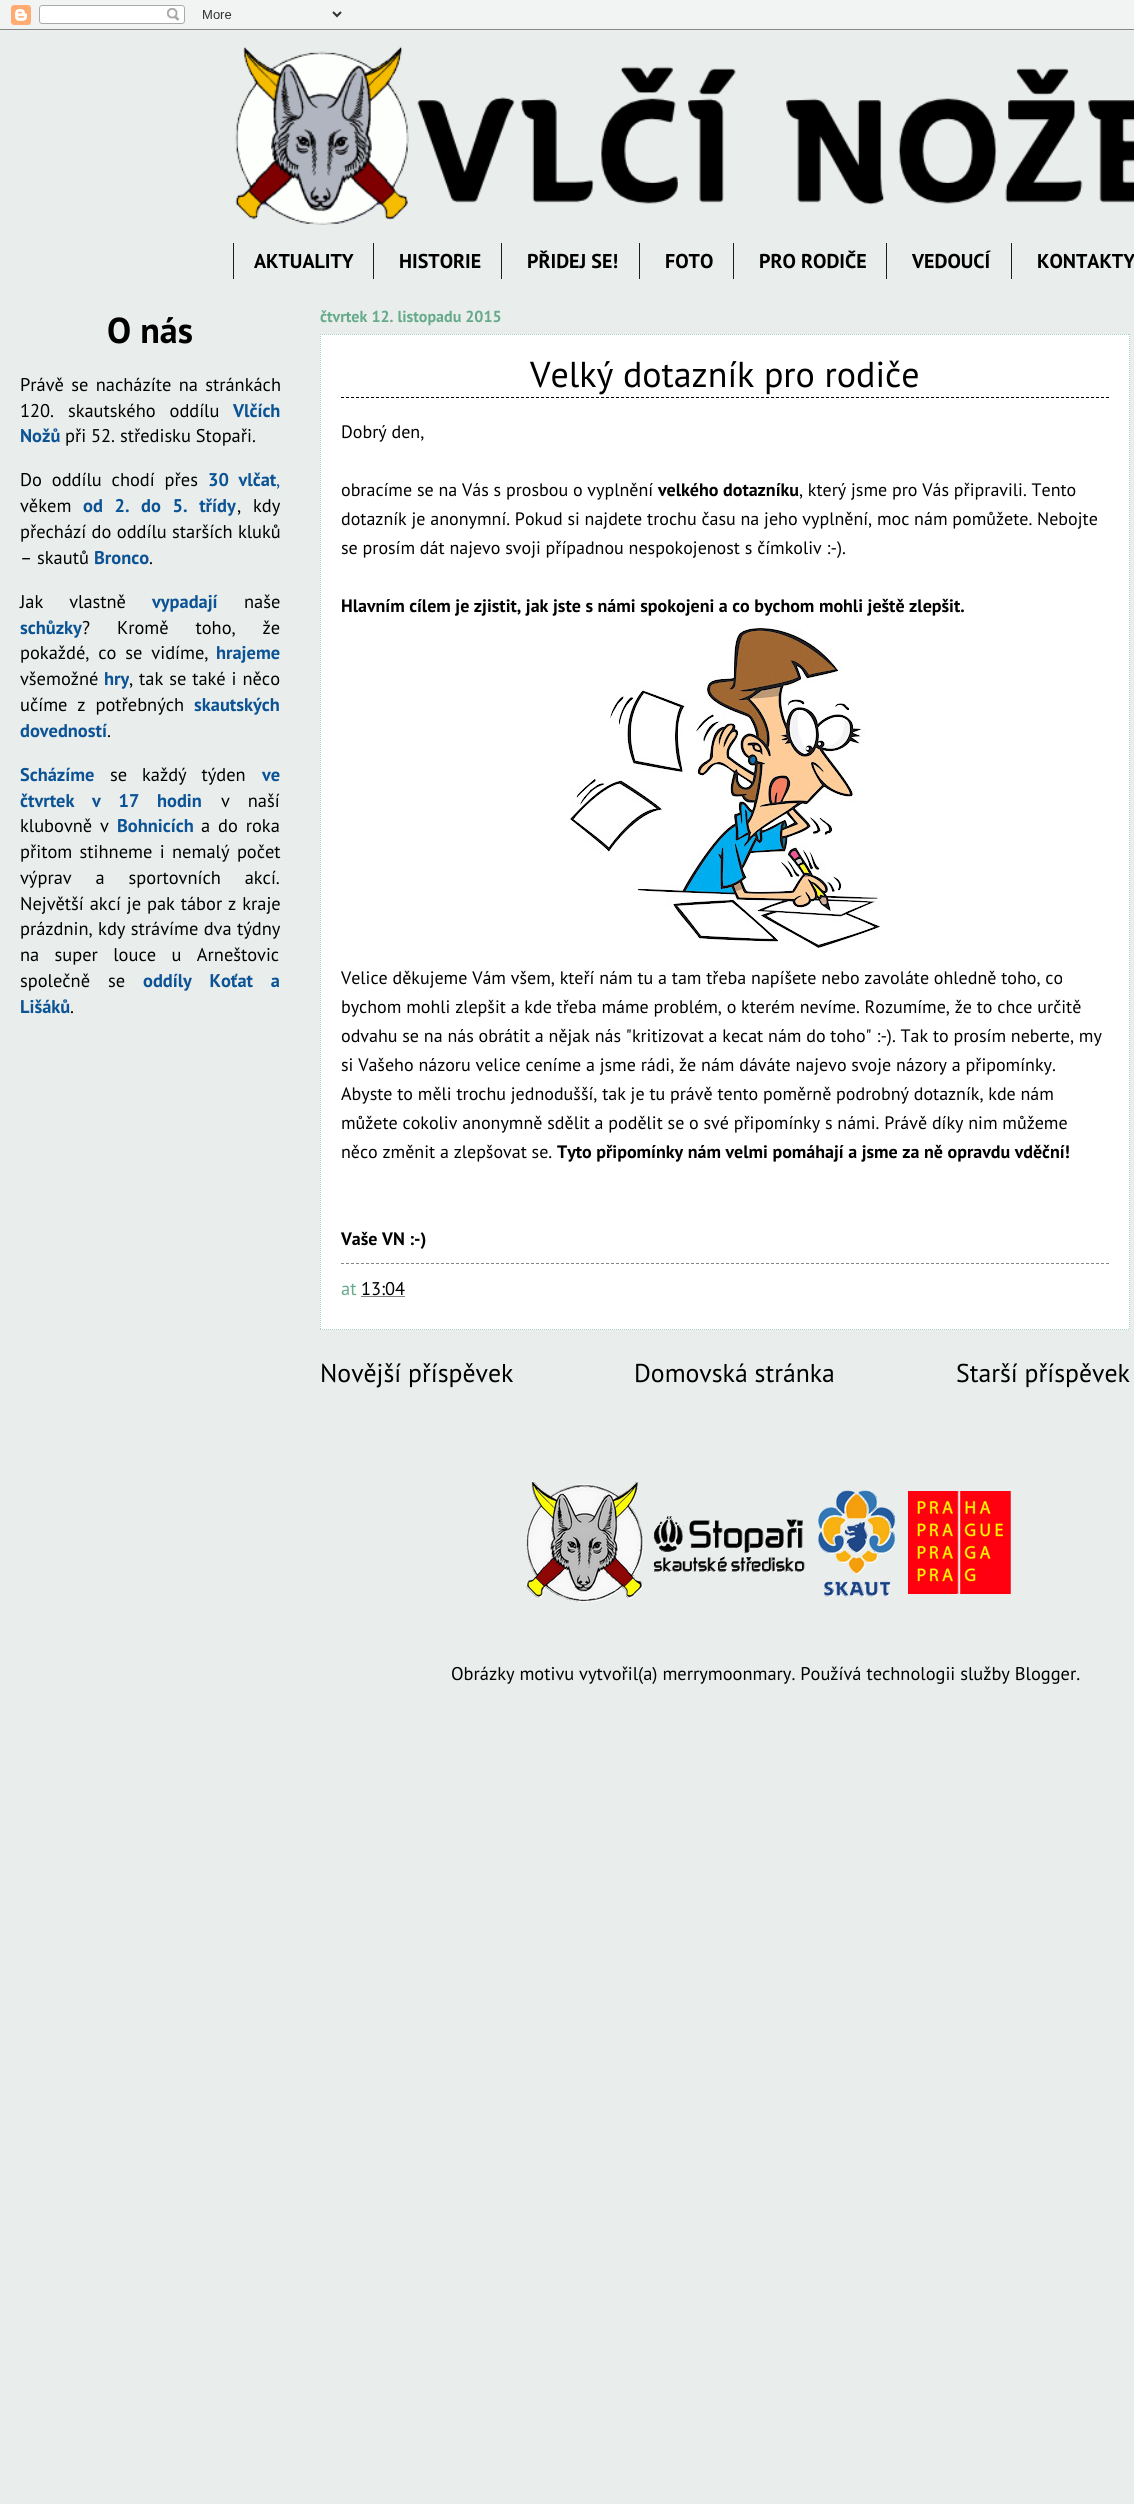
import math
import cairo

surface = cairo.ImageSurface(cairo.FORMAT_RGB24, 1134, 2504)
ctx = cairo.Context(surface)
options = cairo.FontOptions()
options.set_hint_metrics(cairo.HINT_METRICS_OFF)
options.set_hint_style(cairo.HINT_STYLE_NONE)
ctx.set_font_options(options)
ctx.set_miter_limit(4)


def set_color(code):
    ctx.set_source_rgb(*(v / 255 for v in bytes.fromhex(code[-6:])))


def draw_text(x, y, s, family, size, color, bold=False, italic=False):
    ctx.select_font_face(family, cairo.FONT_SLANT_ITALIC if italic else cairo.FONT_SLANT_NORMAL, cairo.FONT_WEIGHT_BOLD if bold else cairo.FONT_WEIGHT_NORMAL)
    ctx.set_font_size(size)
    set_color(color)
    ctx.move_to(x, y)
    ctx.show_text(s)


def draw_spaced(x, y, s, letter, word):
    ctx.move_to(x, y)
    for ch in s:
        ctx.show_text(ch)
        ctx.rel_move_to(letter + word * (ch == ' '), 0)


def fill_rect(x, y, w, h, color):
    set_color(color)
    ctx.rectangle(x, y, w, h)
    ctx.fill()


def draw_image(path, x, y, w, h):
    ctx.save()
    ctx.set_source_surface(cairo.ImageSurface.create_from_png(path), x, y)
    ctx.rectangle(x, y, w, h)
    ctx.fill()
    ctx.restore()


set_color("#e9edec")
ctx.paint()
draw_image("assets/img1.png", 0, 0, 1134, 30)
draw_image("assets/img2.png", 235, 46, 899, 179)
fill_rect(373, 243, 1, 36, "#1d1d1d")
fill_rect(233, 243, 1, 36, "#1d1d1d")
draw_text(254, 268, "AKTUALITY", "PT Sans", 20, "#000000", bold=True)
fill_rect(501, 243, 1, 36, "#1d1d1d")
draw_text(399, 268, "HISTORIE", "PT Sans", 20, "#000000", bold=True)
fill_rect(639, 243, 1, 36, "#1d1d1d")
draw_text(527, 268, "PŘIDEJ SE!", "PT Sans", 20, "#000000", bold=True)
fill_rect(733, 243, 1, 36, "#1d1d1d")
draw_text(665, 268, "FOTO", "PT Sans", 20, "#000000", bold=True)
fill_rect(886, 243, 1, 36, "#1d1d1d")
draw_text(759, 268, "PRO RODIČE", "PT Sans", 20, "#000000", bold=True)
fill_rect(1011, 243, 1, 36, "#1d1d1d")
draw_text(912, 268, "VEDOUCÍ", "PT Sans", 20, "#000000", bold=True)
draw_text(1037, 268, "KONTAKTY", "PT Sans", 20, "#000000", bold=True)
draw_text(107, 343, "O nás", "PT Sans", 36, "#000000", bold=True)
ctx.select_font_face("PT Sans")
ctx.set_font_size(18.4)
draw_spaced(20, 391, "Právě se nacházíte na stránkách", 0, 2.5)
draw_spaced(20, 417, "120. skautského oddílu", 0, 9)
draw_text(233, 417, "Vlčích", "PT Sans", 18.4, "#0b5394", bold=True)
draw_text(20, 442, "Nožů", "PT Sans", 18.4, "#0b5394", bold=True)
draw_text(65, 442, "při 52. středisku Stopaři.", "PT Sans", 18.4, "#000000")
draw_spaced(20, 486, "Do oddílu chodí přes", 0, 5)
ctx.select_font_face("PT Sans", cairo.FONT_SLANT_NORMAL, cairo.FONT_WEIGHT_BOLD)
set_color("#0b5394")
draw_spaced(208, 486, "30 vlčat", 0, 5)
draw_text(276, 486, ",", "PT Sans", 18.4, "#0b5394")
draw_text(20, 512, "věkem", "PT Sans", 18.4, "#000000")
ctx.select_font_face("PT Sans", cairo.FONT_SLANT_NORMAL, cairo.FONT_WEIGHT_BOLD)
set_color("#0b5394")
draw_spaced(83, 512, "od 2. do 5. třídy", 0, 7)
ctx.select_font_face("PT Sans")
set_color("#000000")
draw_spaced(237, 512, ", kdy", 0, 7)
draw_spaced(20, 538, "přechází do oddílu starších kluků", 0, 0.5)
draw_text(20, 564, "– skautů", "PT Sans", 18.4, "#000000")
draw_text(94, 564, "Bronco", "PT Sans", 18.4, "#0b5394", bold=True)
draw_text(149, 564, ".", "PT Sans", 18.4, "#000000")
draw_spaced(20, 608, "Jak vlastně", 0, 21)
draw_text(152, 608, "vypadají", "PT Sans", 18.4, "#0b5394", bold=True)
draw_text(244, 608, "naše", "PT Sans", 18.4, "#000000")
draw_text(20, 634, "schůzky", "PT Sans", 18.4, "#0b5394", bold=True)
ctx.select_font_face("PT Sans")
set_color("#000000")
draw_spaced(82, 634, "? Kromě toho, že", 0, 22)
draw_spaced(20, 659, "pokaždé, co se vidíme,", 0, 4)
draw_text(216, 659, "hrajeme", "PT Sans", 18.4, "#0b5394", bold=True)
draw_text(20, 685, "všemožné", "PT Sans", 18.4, "#000000")
draw_text(104, 685, "hry", "PT Sans", 18.4, "#0b5394", bold=True)
ctx.select_font_face("PT Sans")
set_color("#000000")
draw_spaced(129, 685, ", tak se také i něco", 0, 1)
draw_spaced(20, 711, "učíme z potřebných", 0, 5)
draw_text(194, 711, "skautských", "PT Sans", 18.4, "#0b5394", bold=True)
draw_text(20, 737, "dovedností", "PT Sans", 18.4, "#0b5394", bold=True)
draw_text(107, 737, ".", "PT Sans", 18.4, "#000000")
draw_text(20, 781, "Scházíme", "PT Sans", 18.4, "#0b5394", bold=True)
ctx.select_font_face("PT Sans")
set_color("#000000")
draw_spaced(110, 781, "se každý týden", 0, 10)
draw_text(262, 781, "ve", "PT Sans", 18.4, "#0b5394", bold=True)
draw_spaced(20, 807, "čtvrtek v 17 hodin", 0, 13)
ctx.select_font_face("PT Sans")
set_color("#000000")
draw_spaced(221, 807, "v naší", 0, 13)
draw_spaced(20, 832, "klubovně v", 0, 3)
draw_text(117, 832, "Bohnicích", "PT Sans", 18.4, "#0b5394", bold=True)
ctx.select_font_face("PT Sans")
set_color("#000000")
draw_spaced(201, 832, "a do roka", 0, 3)
draw_spaced(20, 858, "přitom stihneme i nemalý počet", 0, 2.5)
draw_spaced(20, 884, "výprav a sportovních akcí.", 0, 19)
draw_spaced(20, 910, "Největší akcí je pak tábor z kraje", 0, 1)
draw_spaced(20, 935, "prázdnin, kdy strávíme dva týdny", 0, 0.5)
draw_spaced(20, 961, "na super louce u Arneštovic", 0, 10.5)
draw_spaced(20, 987, "společně se", 0, 13)
ctx.select_font_face("PT Sans", cairo.FONT_SLANT_NORMAL, cairo.FONT_WEIGHT_BOLD)
set_color("#0b5394")
draw_spaced(143, 987, "oddíly Koťat a", 0, 13)
draw_text(20, 1013, "Lišáků", "PT Sans", 18.4, "#0b5394", bold=True)
draw_text(70, 1013, ".", "PT Sans", 18.4, "#000000")
draw_text(320, 322, "čtvrtek 12. listopadu 2015", "PT Sans", 16, "#65aa8a", bold=True)
fill_rect(320, 334, 810, 996, "#ffffff")
ctx.new_path()
ctx.move_to(320, 334.5)
ctx.line_to(1130, 334.5)
set_color("#a4d1c4")
ctx.set_line_width(1)
ctx.set_dash([1, 1])
ctx.stroke()
ctx.new_path()
ctx.move_to(1129.5, 334)
ctx.line_to(1129.5, 1330)
ctx.stroke()
ctx.new_path()
ctx.move_to(320, 1329.5)
ctx.line_to(1130, 1329.5)
ctx.stroke()
ctx.new_path()
ctx.move_to(320.5, 334)
ctx.line_to(320.5, 1330)
ctx.stroke()
ctx.new_path()
ctx.move_to(341, 397.5)
ctx.line_to(1109, 397.5)
set_color("#000000")
ctx.set_dash([3, 2])
ctx.stroke()
draw_text(530, 387, "Velký dotazník pro rodiče", "PT Sans", 36, "#000000")
draw_text(341, 438, "Dobrý den,", "PT Sans", 18, "#000000")
draw_text(341, 496, "obracíme se na Vás s prosbou o vyplnění", "PT Sans", 18, "#000000")
draw_text(658, 496, "velkého dotazníku", "PT Sans", 18, "#000000", bold=True)
draw_text(799, 496, ", který jsme pro Vás připravili. Tento", "PT Sans", 18, "#000000")
draw_text(341, 525, "dotazník je anonymní. Pokud si najdete trochu času na jeho vyplnění, moc nám pomůžete. Nebojte", "PT Sans", 18, "#000000")
draw_text(341, 554, "se prosím dát najevo svoji případnou nespokojenost s čímkoliv :-).", "PT Sans", 18, "#000000")
draw_text(341, 612, "Hlavním cílem je zjistit, jak jste s námi spokojeni a co bychom mohli ještě zlepšit.", "PT Sans", 18, "#000000", bold=True)
draw_image("assets/img3.png", 570, 628, 310, 320)
draw_text(341, 984, "Velice děkujeme Vám všem, kteří nám tu a tam třeba napíšete nebo zavoláte ohledně toho, co", "PT Sans", 18, "#000000")
draw_text(341, 1013, "bychom mohli zlepšit a kde třeba máme problém, o kterém nevíme. Rozumíme, že to chce určitě", "PT Sans", 18, "#000000")
draw_text(341, 1042, "odvahu se na nás obrátit a nějak nás \"kritizovat a kecat nám do toho\" :-). Tak to prosím neberte, my", "PT Sans", 18, "#000000")
draw_text(341, 1071, "si Vašeho názoru velice ceníme a jsme rádi, že nám dáváte najevo svoje názory a připomínky.", "PT Sans", 18, "#000000")
draw_text(341, 1100, "Abyste to měli trochu jednodušší, tak je tu právě tento poměrně podrobný dotazník, kde nám", "PT Sans", 18, "#000000")
draw_text(341, 1129, "můžete cokoliv anonymně sdělit a podělit se o své připomínky s námi. Právě díky nim můžeme", "PT Sans", 18, "#000000")
draw_text(341, 1158, "něco změnit a zlepšovat se.", "PT Sans", 18, "#000000")
draw_text(557, 1158, "Tyto připomínky nám velmi pomáhají a jsme za ně opravdu vděční!", "PT Sans", 18, "#000000", bold=True)
draw_text(341, 1245, "Vaše VN :-)", "PT Sans", 18, "#000000", bold=True)
ctx.new_path()
ctx.move_to(341, 1263.5)
ctx.line_to(1109, 1263.5)
set_color("#878787")
ctx.stroke()
draw_text(341, 1295, "at", "PT Sans", 18.4, "#65aa8a")
draw_text(361, 1295, "13:04", "PT Sans", 18.4, "#000000")
ctx.new_path()
ctx.move_to(361.5, 1296.5)
ctx.line_to(405.5, 1296.5)
ctx.set_dash([1, 1])
ctx.stroke()
draw_text(320, 1382, "Novější příspěvek", "PT Sans", 25.75, "#000000")
draw_text(634, 1382, "Domovská stránka", "PT Sans", 25.75, "#000000")
draw_text(956, 1382, "Starší příspěvek", "PT Sans", 25.75, "#000000")
draw_image("assets/img4.png", 526, 1482, 485, 120)
draw_text(451, 1680, "Obrázky motivu vytvořil(a) merrymoonmary. Používá technologii služby Blogger.", "PT Sans", 18.4, "#000000")
surface.write_to_png("output.png")
